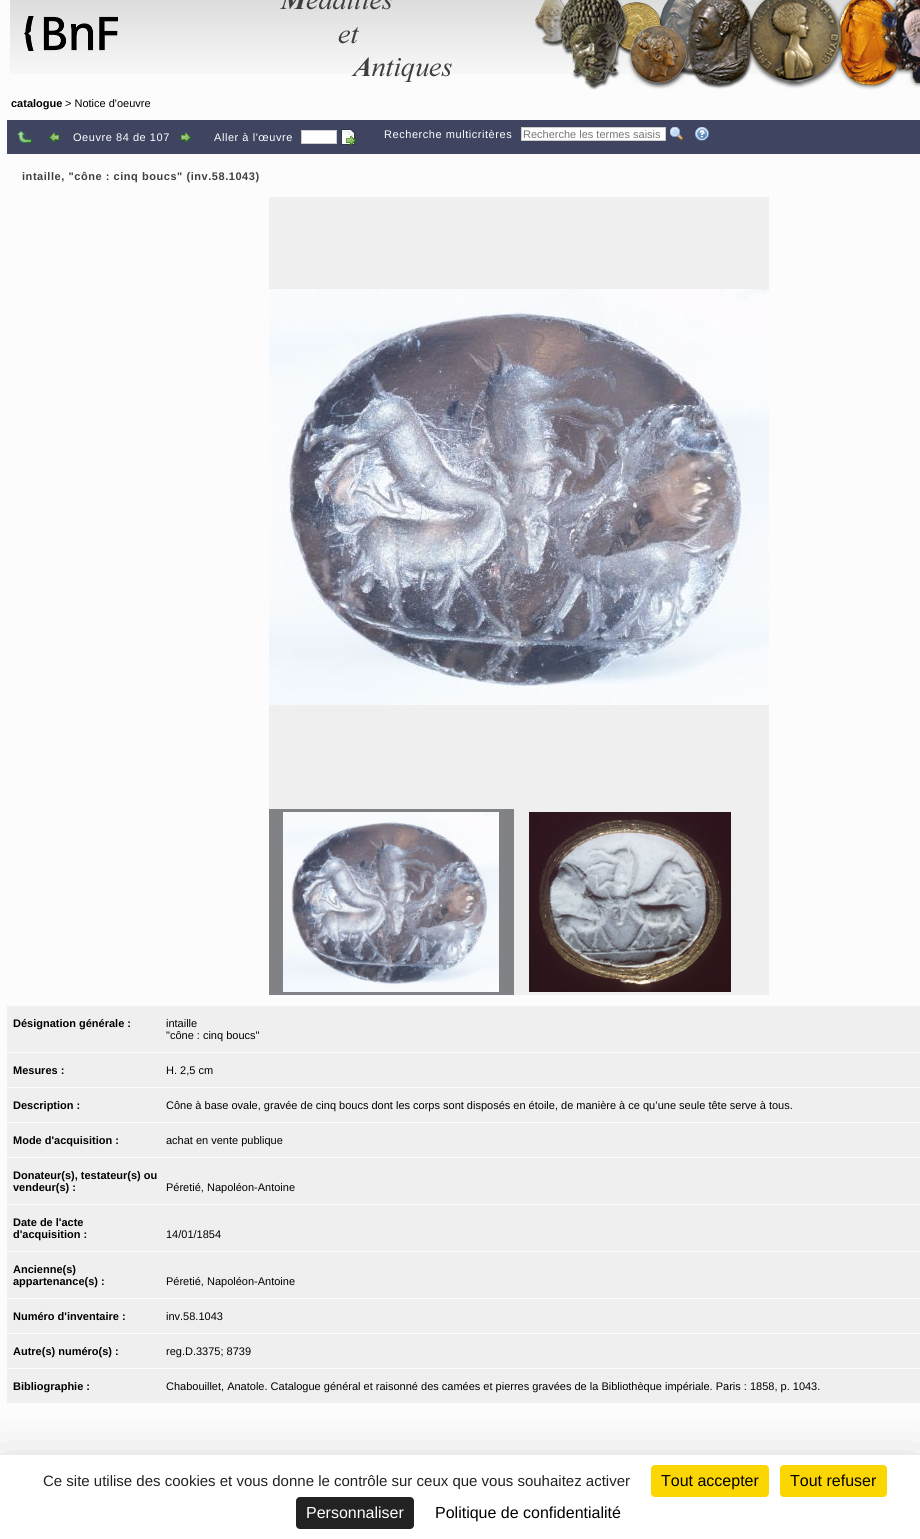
import math
import cairo

surface = cairo.ImageSurface(cairo.FORMAT_RGB24, 920, 1539)
ctx = cairo.Context(surface)
options = cairo.FontOptions()
options.set_hint_metrics(cairo.HINT_METRICS_OFF)
options.set_hint_style(cairo.HINT_STYLE_NONE)
ctx.set_font_options(options)
ctx.set_miter_limit(4)


def set_color(code):
    ctx.set_source_rgb(*(v / 255 for v in bytes.fromhex(code[-6:])))


def draw_text(x, y, s, family, size, color, bold=False, italic=False):
    ctx.select_font_face(family, cairo.FONT_SLANT_ITALIC if italic else cairo.FONT_SLANT_NORMAL, cairo.FONT_WEIGHT_BOLD if bold else cairo.FONT_WEIGHT_NORMAL)
    ctx.set_font_size(size)
    set_color(color)
    ctx.move_to(x, y)
    ctx.show_text(s)


def draw_spaced(x, y, s, letter, word):
    ctx.move_to(x, y)
    for ch in s:
        ctx.show_text(ch)
        ctx.rel_move_to(letter + word * (ch == ' '), 0)


def fill_rect(x, y, w, h, color):
    set_color(color)
    ctx.rectangle(x, y, w, h)
    ctx.fill()


def rounded_rect(x, y, w, h, r):
    ctx.new_sub_path()
    for i, (u, v) in enumerate([(x + w - r, y + h - r), (x + r, y + h - r), (x + r, y + r), (x + w - r, y + r)]):
        ctx.arc(u, v, r, i * math.pi / 2, (i + 1) * math.pi / 2)
    ctx.close_path()


def draw_shadow(x, y, w, h, r, blur, alpha):
    ctx.push_group_with_content(cairo.CONTENT_ALPHA)
    ctx.set_operator(cairo.OPERATOR_SOURCE)
    for i in range(15, -16, -2):
        e = blur * i / 6
        if min(w, h) + 2 * e > 0:
            ctx.set_source_rgba(0, 0, 0, alpha * math.erfc((i - 1) / 8.5) / 2)
            rounded_rect(x - e, y - e, w + 2 * e, h + 2 * e, max(0, min(r + e + blur * .6, min(w, h) / 2 + e)))
            ctx.fill()
    ctx.mask(ctx.pop_group())


def draw_image(path, x, y, w, h):
    ctx.save()
    ctx.set_source_surface(cairo.ImageSurface.create_from_png(path), x, y)
    ctx.rectangle(x, y, w, h)
    ctx.fill()
    ctx.restore()


set_color("#fcfcfc")
ctx.paint()
draw_image("assets/img1.png", 10, 0, 905, 74)
draw_image("assets/img2.png", 24, 0, 428, 82)
draw_image("assets/img3.png", 535, 0, 385, 90)
draw_text(11, 107, "catalogue", "Liberation Sans", 11, "#000000", bold=True)
draw_text(65, 107, "> Notice d'oeuvre", "Liberation Sans", 11, "#000000")
fill_rect(7, 120, 913, 34, "#3f4461")
draw_image("assets/img4.png", 17, 131, 15, 12)
draw_image("assets/img5.png", 49, 133, 10, 9)
set_color("#ffffff")
draw_spaced(73, 141, "Oeuvre 84 de 107", 0.55, 0)
draw_image("assets/img6.png", 181, 133, 10, 9)
draw_spaced(214, 141, "Aller à l'œuvre", 0.55, 0)
ctx.rectangle(301.5, 130.5, 35, 13)
ctx.fill_preserve()
set_color("#cccccc")
ctx.set_line_width(1)
ctx.stroke()
draw_image("assets/img7.png", 341, 129, 15, 16)
set_color("#ffffff")
draw_spaced(384, 138, "Recherche multicritères", 0.55, 0)
ctx.rectangle(521.5, 127.5, 144, 13)
ctx.fill_preserve()
set_color("#cccccc")
ctx.stroke()
draw_text(523, 138, "Recherche les termes saisis", "Liberation Sans", 11, "#757575")
draw_image("assets/img8.png", 670, 127, 13, 14)
draw_image("assets/img9.png", 695, 127, 14, 14)
ctx.select_font_face("Liberation Sans", cairo.FONT_SLANT_NORMAL, cairo.FONT_WEIGHT_BOLD)
set_color("#3f3f3f")
draw_spaced(22, 180, "intaille, \"cône : cinq boucs\" (inv.58.1043)", 0.55, 0)
fill_rect(269, 197, 500, 798, "#efefef")
fill_rect(269, 809, 245, 186, "#818285")
draw_image("assets/img10.png", 283, 812, 216, 180)
draw_image("assets/img11.png", 529, 812, 202, 180)
draw_image("assets/img12.png", 269, 289, 500, 416)
fill_rect(7, 1006, 913, 397, "#efefef")
draw_text(13, 1027, "Désignation générale :", "Liberation Sans", 11, "#000000", bold=True)
draw_text(166, 1027, "intaille", "Liberation Sans", 11, "#000000")
draw_text(166, 1039, "\"cône : cinq boucs\"", "Liberation Sans", 11, "#000000")
fill_rect(7, 1052, 913, 1, "#fcfcfc")
draw_text(13, 1074, "Mesures :", "Liberation Sans", 11, "#000000", bold=True)
draw_text(166, 1074, "H. 2,5 cm", "Liberation Sans", 11, "#000000")
fill_rect(7, 1087, 913, 1, "#fcfcfc")
draw_text(13, 1109, "Description :", "Liberation Sans", 11, "#000000", bold=True)
draw_text(166, 1109, "Cône à base ovale, gravée de cinq boucs dont les corps sont disposés en étoile, de manière à ce qu’une seule tête serve à tous.", "Liberation Sans", 11, "#000000")
fill_rect(7, 1122, 913, 1, "#fcfcfc")
draw_text(13, 1144, "Mode d'acquisition :", "Liberation Sans", 11, "#000000", bold=True)
draw_text(166, 1144, "achat en vente publique", "Liberation Sans", 11, "#000000")
fill_rect(7, 1157, 913, 1, "#fcfcfc")
draw_text(13, 1179, "Donateur(s), testateur(s) ou", "Liberation Sans", 11, "#000000", bold=True)
draw_text(13, 1191, "vendeur(s) :", "Liberation Sans", 11, "#000000", bold=True)
draw_text(166, 1191, "Péretié, Napoléon-Antoine", "Liberation Sans", 11, "#000000")
fill_rect(7, 1204, 913, 1, "#fcfcfc")
draw_text(13, 1226, "Date de l'acte", "Liberation Sans", 11, "#000000", bold=True)
draw_text(13, 1238, "d'acquisition :", "Liberation Sans", 11, "#000000", bold=True)
draw_text(166, 1238, "14/01/1854", "Liberation Sans", 11, "#000000")
fill_rect(7, 1251, 913, 1, "#fcfcfc")
draw_text(13, 1273, "Ancienne(s)", "Liberation Sans", 11, "#000000", bold=True)
draw_text(13, 1285, "appartenance(s) :", "Liberation Sans", 11, "#000000", bold=True)
draw_text(166, 1285, "Péretié, Napoléon-Antoine", "Liberation Sans", 11, "#000000")
fill_rect(7, 1298, 913, 1, "#fcfcfc")
draw_text(13, 1320, "Numéro d'inventaire :", "Liberation Sans", 11, "#000000", bold=True)
draw_text(166, 1320, "inv.58.1043", "Liberation Sans", 11, "#000000")
fill_rect(7, 1333, 913, 1, "#fcfcfc")
draw_text(13, 1355, "Autre(s) numéro(s) :", "Liberation Sans", 11, "#000000", bold=True)
draw_text(166, 1355, "reg.D.3375; 8739", "Liberation Sans", 11, "#000000")
fill_rect(7, 1368, 913, 1, "#fcfcfc")
draw_text(13, 1390, "Bibliographie :", "Liberation Sans", 11, "#000000", bold=True)
draw_text(166, 1390, "Chabouillet, Anatole. Catalogue général et raisonné des camées et pierres gravées de la Bibliothèque impériale. Paris : 1858, p. 1043.", "Liberation Sans", 11, "#000000")
set_color("#000000")
draw_shadow(0, 1475, 920, 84, 0, 30, 0.25)
fill_rect(0, 1455, 920, 84, "#ffffff")
draw_text(43, 1486, "Ce site utilise des cookies et vous donne le contrôle sur ceux que vous souhaitez activer", "Liberation Sans", 15, "#222222")
set_color("#fbd600")
rounded_rect(651, 1465, 118, 32, 4)
ctx.fill()
draw_text(661, 1486, "Tout accepter", "Liberation Sans", 16, "#000000")
set_color("#fbd600")
rounded_rect(780, 1465, 107, 32, 4)
ctx.fill()
draw_text(790, 1486, "Tout refuser", "Liberation Sans", 16, "#000000")
set_color("#222222")
rounded_rect(296, 1497, 118, 32, 4)
ctx.fill()
draw_text(306, 1518, "Personnaliser", "Liberation Sans", 16, "#ffffff")
draw_text(435, 1518, "Politique de confidentialité", "Liberation Sans", 16, "#000000")
surface.write_to_png("output.png")
